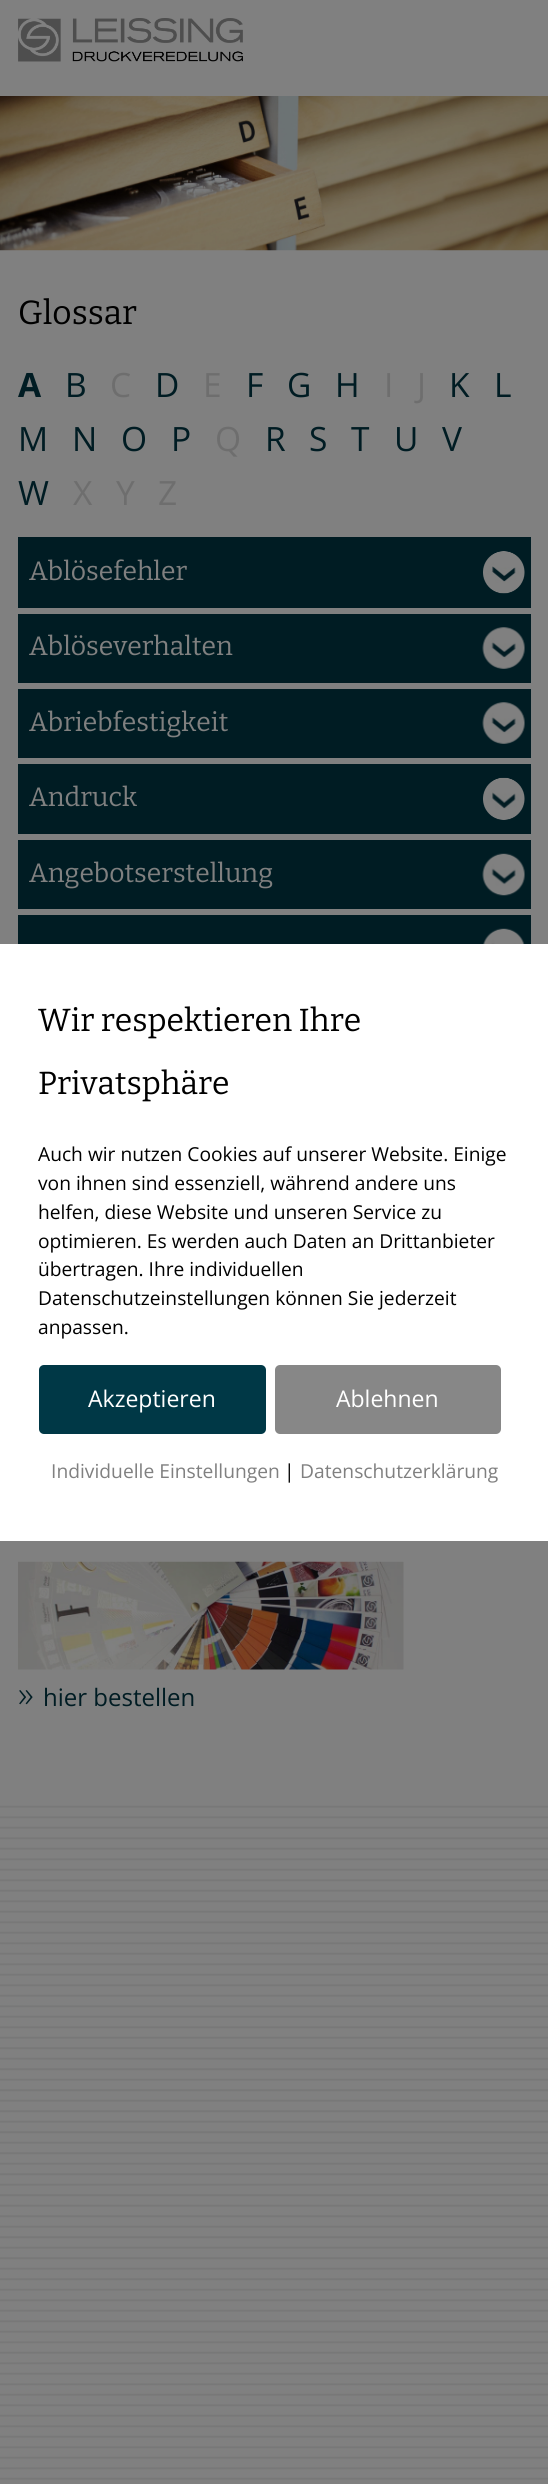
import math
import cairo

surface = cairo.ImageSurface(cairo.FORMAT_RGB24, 548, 2484)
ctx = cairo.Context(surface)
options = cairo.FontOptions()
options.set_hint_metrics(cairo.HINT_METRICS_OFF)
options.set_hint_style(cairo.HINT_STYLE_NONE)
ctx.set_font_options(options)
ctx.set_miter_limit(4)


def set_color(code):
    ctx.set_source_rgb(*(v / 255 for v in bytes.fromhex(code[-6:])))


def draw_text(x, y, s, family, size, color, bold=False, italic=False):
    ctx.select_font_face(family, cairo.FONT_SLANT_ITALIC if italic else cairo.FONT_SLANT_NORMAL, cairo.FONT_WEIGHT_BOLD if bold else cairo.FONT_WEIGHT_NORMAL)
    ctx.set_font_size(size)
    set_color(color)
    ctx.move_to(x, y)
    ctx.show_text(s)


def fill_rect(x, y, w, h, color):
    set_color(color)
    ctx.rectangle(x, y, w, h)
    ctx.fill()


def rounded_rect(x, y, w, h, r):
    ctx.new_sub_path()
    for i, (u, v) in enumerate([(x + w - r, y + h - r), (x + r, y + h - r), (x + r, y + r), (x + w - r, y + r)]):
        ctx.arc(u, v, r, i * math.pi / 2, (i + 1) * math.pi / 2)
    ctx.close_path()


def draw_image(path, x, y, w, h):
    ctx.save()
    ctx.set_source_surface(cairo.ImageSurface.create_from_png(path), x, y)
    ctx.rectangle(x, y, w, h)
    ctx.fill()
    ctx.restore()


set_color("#808080")
ctx.paint()
draw_image("assets/img1.png", 0, 1800, 548, 680)
draw_image("assets/img2.png", 18, 18, 225, 44)
draw_image("assets/img3.png", 0, 96, 548, 155)
draw_text(18, 324, "Glossar", "Bitter", 33.5, "#000000")
draw_text(18, 397, "A", "Open Sans", 33.5, "#001c23", bold=True)
draw_text(65, 397, "B", "Open Sans", 33.5, "#001c23")
draw_text(110, 397, "C", "Open Sans", 33.5, "#6e6e6e")
draw_text(155, 397, "D", "Open Sans", 33.5, "#001c23")
draw_text(203, 397, "E", "Open Sans", 33.5, "#6e6e6e")
draw_text(246, 397, "F", "Open Sans", 33.5, "#001c23")
draw_text(287, 397, "G", "Open Sans", 33.5, "#001c23")
draw_text(335, 397, "H", "Open Sans", 33.5, "#001c23")
draw_text(384, 397, "I", "Open Sans", 33.5, "#6e6e6e")
draw_text(417, 397, "J", "Open Sans", 33.5, "#6e6e6e")
draw_text(449, 397, "K", "Open Sans", 33.5, "#001c23")
draw_text(494, 397, "L", "Open Sans", 33.5, "#001c23")
draw_text(18, 451, "M", "Open Sans", 33.5, "#001c23")
draw_text(72, 451, "N", "Open Sans", 33.5, "#001c23")
draw_text(121, 451, "O", "Open Sans", 33.5, "#001c23")
draw_text(171, 451, "P", "Open Sans", 33.5, "#001c23")
draw_text(215, 451, "Q", "Open Sans", 33.5, "#6e6e6e")
draw_text(265, 451, "R", "Open Sans", 33.5, "#001c23")
draw_text(309, 451, "S", "Open Sans", 33.5, "#001c23")
draw_text(351, 451, "T", "Open Sans", 33.5, "#001c23")
draw_text(394, 451, "U", "Open Sans", 33.5, "#001c23")
draw_text(442, 451, "V", "Open Sans", 33.5, "#001c23")
draw_text(18, 505, "W", "Open Sans", 33.5, "#001c23")
draw_text(73, 505, "X", "Open Sans", 33.5, "#6e6e6e")
draw_text(116, 505, "Y", "Open Sans", 33.5, "#6e6e6e")
draw_text(158, 505, "Z", "Open Sans", 33.5, "#6e6e6e")
fill_rect(18, 537, 513, 71, "#001c23")
draw_image("assets/img4.png", 483, 551, 42, 43)
draw_text(29, 580, "Ablösefehler", "Bitter", 26.5, "#808080")
fill_rect(18, 614, 513, 69, "#001c23")
draw_image("assets/img5.png", 482, 627, 43, 42)
draw_text(29, 655, "Ablöseverhalten", "Bitter", 26.5, "#808080")
fill_rect(18, 689, 513, 69, "#001c23")
draw_image("assets/img5.png", 482, 702, 43, 42)
draw_text(29, 731, "Abriebfestigkeit", "Bitter", 26.5, "#808080")
fill_rect(18, 764, 513, 70, "#001c23")
draw_image("assets/img6.png", 483, 777, 42, 43)
draw_text(29, 806, "Andruck", "Bitter", 26.5, "#808080")
fill_rect(18, 840, 513, 69, "#001c23")
draw_image("assets/img7.png", 482, 853, 43, 43)
draw_text(29, 882, "Angebotserstellung", "Bitter", 26.5, "#808080")
fill_rect(18, 915, 513, 29, "#001c23")
draw_image("assets/img8.png", 483, 928, 42, 16)
draw_image("assets/img9.png", 18, 1561, 386, 109)
draw_text(18, 1707, "»", "Open Sans Light", 36, "#001c23")
draw_text(43, 1706, "hier bestellen", "Open Sans", 24, "#001c23")
fill_rect(0, 944, 548, 597, "#ffffff")
draw_text(38, 1031, "Wir respektieren Ihre", "Bitter", 31.9, "#000000")
draw_text(38, 1094, "Privatsphäre", "Bitter", 31.9, "#000000")
draw_text(38, 1161, "Auch wir nutzen Cookies auf unserer Website. Einige", "Open Sans", 19.2, "#000000")
draw_text(38, 1190, "von ihnen sind essenziell, während andere uns", "Open Sans", 19.2, "#000000")
draw_text(38, 1219, "helfen, diese Website und unseren Service zu", "Open Sans", 19.2, "#000000")
draw_text(38, 1248, "optimieren. Es werden auch Daten an Drittanbieter", "Open Sans", 19.2, "#000000")
draw_text(38, 1276, "übertragen. Ihre individuellen", "Open Sans", 19.2, "#000000")
draw_text(38, 1305, "Datenschutzeinstellungen können Sie jederzeit", "Open Sans", 19.2, "#000000")
draw_text(38, 1334, "anpassen.", "Open Sans", 19.2, "#000000")
set_color("#003846")
rounded_rect(39, 1365, 227, 69, 5)
ctx.fill()
draw_text(88, 1407, "Akzeptieren", "Open Sans", 23, "#ffffff")
set_color("#878787")
rounded_rect(275, 1365, 226, 69, 5)
ctx.fill()
draw_text(336, 1407, "Ablehnen", "Open Sans", 23, "#ffffff")
draw_text(51, 1478, "Individuelle Einstellungen", "Open Sans", 19.25, "#808080")
draw_text(284, 1478, "|", "Open Sans", 19.25, "#000000")
draw_text(300, 1478, "Datenschutzerklärung", "Open Sans", 19.25, "#808080")
surface.write_to_png("output.png")
